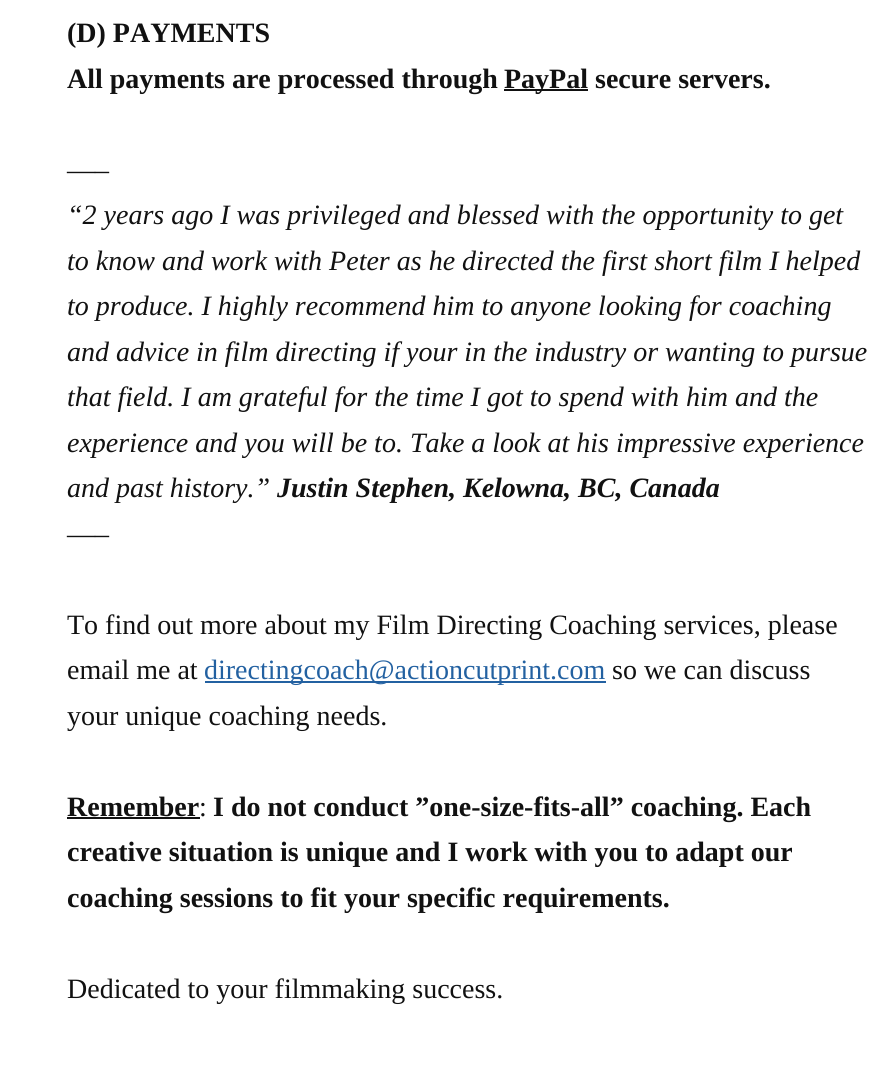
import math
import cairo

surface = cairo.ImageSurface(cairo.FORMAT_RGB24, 892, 1071)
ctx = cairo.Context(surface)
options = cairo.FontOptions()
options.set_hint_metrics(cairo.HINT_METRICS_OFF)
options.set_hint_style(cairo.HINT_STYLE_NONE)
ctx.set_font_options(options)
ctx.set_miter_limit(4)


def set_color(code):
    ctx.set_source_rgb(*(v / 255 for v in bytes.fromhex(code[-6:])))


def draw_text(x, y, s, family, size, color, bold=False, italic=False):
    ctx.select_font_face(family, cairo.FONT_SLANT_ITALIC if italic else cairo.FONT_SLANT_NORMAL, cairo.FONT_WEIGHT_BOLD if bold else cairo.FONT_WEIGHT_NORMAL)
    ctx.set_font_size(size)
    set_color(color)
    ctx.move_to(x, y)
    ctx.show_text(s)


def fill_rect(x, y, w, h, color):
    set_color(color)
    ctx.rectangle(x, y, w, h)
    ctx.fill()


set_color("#ffffff")
ctx.paint()
draw_text(67, 42, "(D) PAYMENTS", "Liberation Serif", 28, "#111111", bold=True)
draw_text(67, 88, "All payments are processed through", "Liberation Serif", 28, "#111111", bold=True)
fill_rect(504, 89, 84, 2, "#111111")
draw_text(504, 88, "PayPal secure servers.", "Liberation Serif", 28, "#111111", bold=True)
draw_text(67, 179, "—–", "Liberation Serif", 28, "#111111")
draw_text(67, 224, "“2 years ago I was privileged and blessed with the opportunity to get", "Liberation Serif", 28, "#111111", italic=True)
draw_text(67, 270, "to know and work with Peter as he directed the first short film I helped", "Liberation Serif", 28, "#111111", italic=True)
draw_text(67, 315, "to produce. I highly recommend him to anyone looking for coaching", "Liberation Serif", 28, "#111111", italic=True)
draw_text(67, 361, "and advice in film directing if your in the industry or wanting to pursue", "Liberation Serif", 28, "#111111", italic=True)
draw_text(67, 406, "that field. I am grateful for the time I got to spend with him and the", "Liberation Serif", 28, "#111111", italic=True)
draw_text(67, 452, "experience and you will be to. Take a look at his impressive experience", "Liberation Serif", 28, "#111111", italic=True)
draw_text(67, 497, "and past history.”", "Liberation Serif", 28, "#111111", italic=True)
draw_text(277, 497, "Justin Stephen, Kelowna, BC, Canada", "Liberation Serif", 28, "#111111", bold=True, italic=True)
draw_text(67, 543, "—–", "Liberation Serif", 28, "#111111")
draw_text(67, 634, "To find out more about my Film Directing Coaching services, please", "Liberation Serif", 28, "#111111")
draw_text(67, 679, "email me at", "Liberation Serif", 28, "#111111")
fill_rect(205, 681, 401, 2, "#2361a1")
draw_text(204, 679, "directingcoach@actioncutprint.com", "Liberation Serif", 28, "#2361a1")
draw_text(612, 679, "so we can discuss", "Liberation Serif", 28, "#111111")
draw_text(67, 725, "your unique coaching needs.", "Liberation Serif", 28, "#111111")
draw_text(67, 816, "Remember", "Liberation Serif", 28, "#111111", bold=True)
fill_rect(67, 817, 133, 2, "#111111")
draw_text(199, 816, ":", "Liberation Serif", 28, "#111111")
draw_text(213, 816, "I do not conduct ”one-size-fits-all” coaching. Each", "Liberation Serif", 28, "#111111", bold=True)
draw_text(67, 861, "creative situation is unique and I work with you to adapt our", "Liberation Serif", 28, "#111111", bold=True)
draw_text(67, 907, "coaching sessions to fit your specific requirements.", "Liberation Serif", 28, "#111111", bold=True)
draw_text(67, 998, "Dedicated to your filmmaking success.", "Liberation Serif", 28, "#111111")
surface.write_to_png("output.png")
